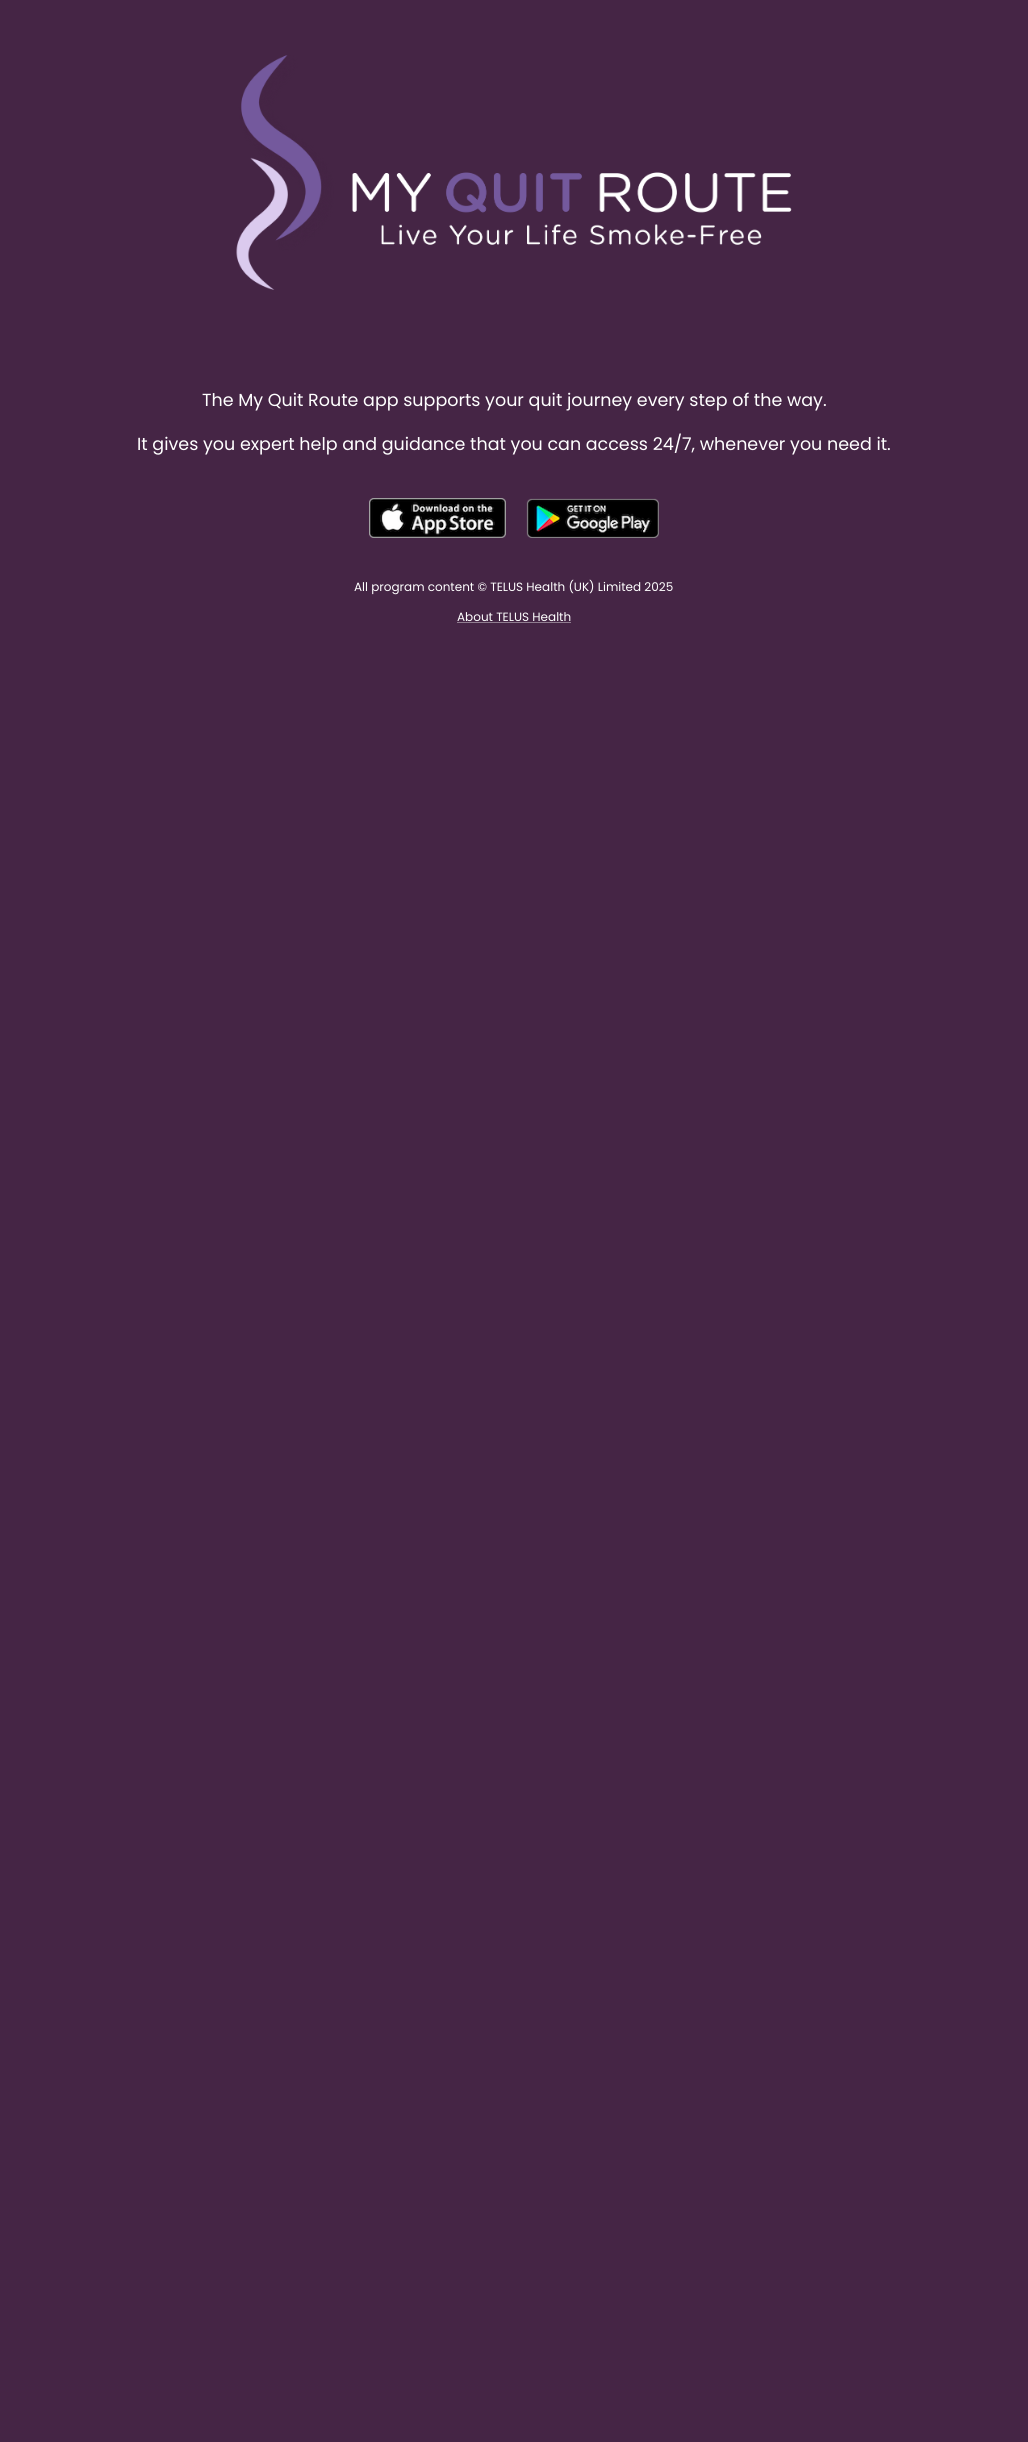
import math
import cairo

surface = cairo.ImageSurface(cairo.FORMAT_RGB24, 1028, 2442)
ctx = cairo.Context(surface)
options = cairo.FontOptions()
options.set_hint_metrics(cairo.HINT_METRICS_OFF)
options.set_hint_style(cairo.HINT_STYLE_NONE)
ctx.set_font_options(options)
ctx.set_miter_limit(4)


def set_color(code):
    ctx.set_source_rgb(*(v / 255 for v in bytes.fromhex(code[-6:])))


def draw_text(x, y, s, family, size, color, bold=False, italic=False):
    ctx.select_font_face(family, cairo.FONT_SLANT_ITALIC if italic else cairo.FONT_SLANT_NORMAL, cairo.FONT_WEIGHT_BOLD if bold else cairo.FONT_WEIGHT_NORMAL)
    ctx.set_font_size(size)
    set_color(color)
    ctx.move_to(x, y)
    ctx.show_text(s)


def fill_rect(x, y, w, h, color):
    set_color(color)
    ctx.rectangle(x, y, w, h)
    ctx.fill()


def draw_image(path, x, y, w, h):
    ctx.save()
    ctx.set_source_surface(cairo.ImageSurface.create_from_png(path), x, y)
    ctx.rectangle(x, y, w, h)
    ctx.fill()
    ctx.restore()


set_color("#452545")
ctx.paint()
draw_image("assets/img1.png", 236, 55, 556, 235)
draw_text(202, 406, "The My Quit Route app supports your quit journey every step of the way.", "Poppins", 17.5, "#ffffff")
draw_text(137, 450, "It gives you expert help and guidance that you can access 24/7, whenever you need it.", "Poppins", 17.5, "#ffffff")
draw_image("assets/img2.png", 369, 498, 137, 40)
draw_image("assets/img3.png", 526, 498, 133, 40)
draw_text(354, 591, "All program content © TELUS Health (UK) Limited 2025", "Poppins", 12, "#ffffff")
draw_text(457, 621, "About TELUS Health", "Poppins", 12, "#ffffff")
fill_rect(457, 622, 114, 1, "#8f7c8f")
surface.write_to_png("output.png")
